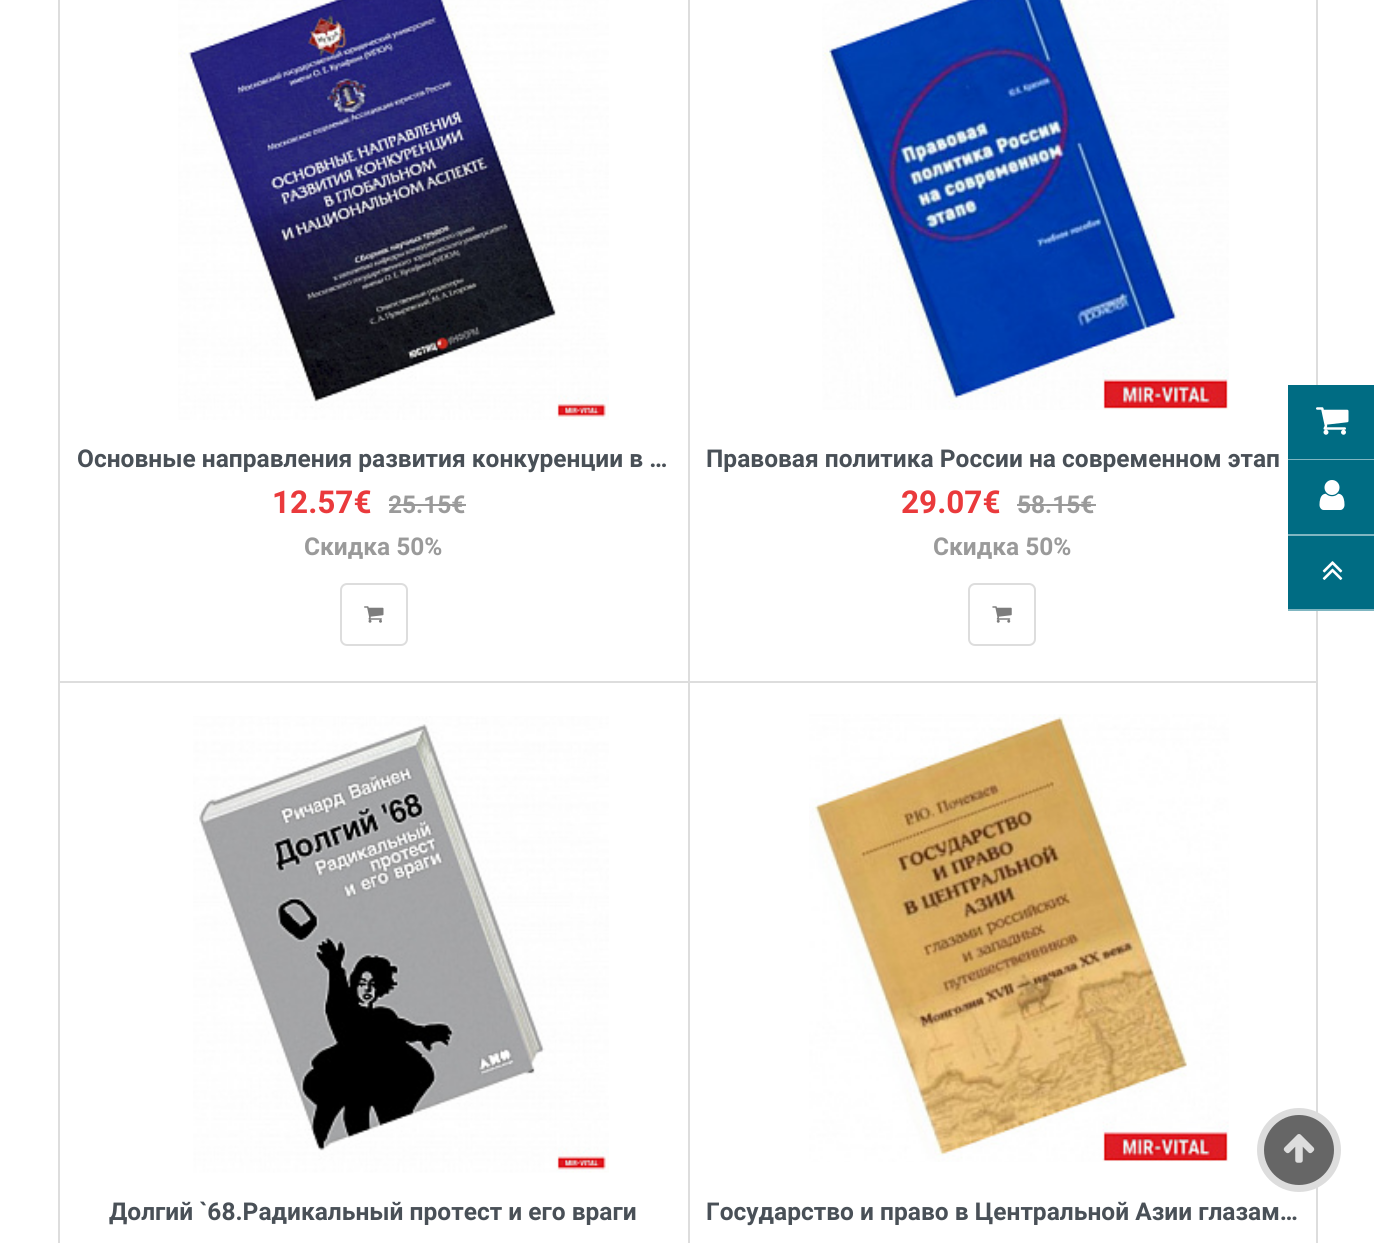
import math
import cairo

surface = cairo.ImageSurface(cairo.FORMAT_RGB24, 1374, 1243)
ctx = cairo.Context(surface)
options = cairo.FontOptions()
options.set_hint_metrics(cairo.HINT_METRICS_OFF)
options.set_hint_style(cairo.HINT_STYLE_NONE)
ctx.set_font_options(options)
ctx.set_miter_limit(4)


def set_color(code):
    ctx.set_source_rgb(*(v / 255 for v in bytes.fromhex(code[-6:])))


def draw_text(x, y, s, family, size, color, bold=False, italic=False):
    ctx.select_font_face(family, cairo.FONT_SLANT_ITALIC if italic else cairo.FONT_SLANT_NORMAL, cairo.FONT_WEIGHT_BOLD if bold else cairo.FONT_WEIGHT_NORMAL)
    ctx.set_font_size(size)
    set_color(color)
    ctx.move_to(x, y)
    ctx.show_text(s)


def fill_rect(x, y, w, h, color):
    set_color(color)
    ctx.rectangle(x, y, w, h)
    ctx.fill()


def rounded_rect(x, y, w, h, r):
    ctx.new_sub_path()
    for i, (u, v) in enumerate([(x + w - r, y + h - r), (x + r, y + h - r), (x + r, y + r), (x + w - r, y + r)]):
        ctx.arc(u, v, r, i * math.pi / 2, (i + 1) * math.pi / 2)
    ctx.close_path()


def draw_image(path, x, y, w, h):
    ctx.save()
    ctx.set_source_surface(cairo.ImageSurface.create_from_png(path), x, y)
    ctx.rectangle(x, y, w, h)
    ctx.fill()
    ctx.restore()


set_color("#ffffff")
ctx.paint()
fill_rect(58, 0, 2, 1243, "#dddddd")
fill_rect(688, 0, 2, 1243, "#dddddd")
fill_rect(1316, 0, 2, 1243, "#dddddd")
fill_rect(60, 681, 1258, 2, "#dddddd")
draw_image("assets/img1.png", 178, 0, 431, 420)
draw_text(77, 467, "Основные направления развития конкуренции в …", "Roboto", 24.5, "#495057", bold=True)
draw_text(272, 513, "12.57€", "Roboto", 31.5, "#ea3a3c", bold=True)
draw_text(388, 513, "25.15€", "Roboto", 24.5, "#9a9a9a", bold=True)
fill_rect(389, 504, 77, 2, "#9a9a9a")
draw_text(304, 555, "Скидка 50%", "Roboto", 24.5, "#9a9a9a", bold=True)
rounded_rect(341, 584, 66, 61, 6)
set_color("#dddddd")
ctx.stroke()
draw_image("assets/img2.png", 364, 606, 20, 17)
draw_image("assets/img3.png", 822, 0, 407, 410)
draw_text(706, 467, "Правовая политика России на современном этап", "Roboto", 24.5, "#495057", bold=True)
draw_text(901, 513, "29.07€", "Roboto", 31.5, "#ea3a3c", bold=True)
draw_text(1017, 513, "58.15€", "Roboto", 24.5, "#9a9a9a", bold=True)
fill_rect(1017, 504, 79, 2, "#9a9a9a")
draw_text(933, 555, "Скидка 50%", "Roboto", 24.5, "#9a9a9a", bold=True)
rounded_rect(969, 584, 66, 61, 6)
set_color("#dddddd")
ctx.stroke()
draw_image("assets/img4.png", 992, 606, 20, 17)
draw_image("assets/img5.png", 193, 716, 416, 457)
draw_text(109, 1220, "Долгий `68.Радикальный протест и его враги", "Roboto", 24.5, "#495057", bold=True)
draw_image("assets/img6.png", 809, 714, 420, 448)
draw_text(706, 1220, "Государство и право в Центральной Азии глазам…", "Roboto", 24.5, "#495057", bold=True)
fill_rect(1288, 385, 86, 74, "#006c83")
fill_rect(1288, 459, 86, 1, "#80b6c1")
draw_image("assets/img7.png", 1316, 407, 33, 28)
fill_rect(1288, 460, 86, 74, "#006c83")
fill_rect(1288, 534, 86, 2, "#80b6c1")
draw_image("assets/img8.png", 1319, 480, 26, 30)
fill_rect(1288, 536, 86, 73, "#006c83")
fill_rect(1288, 609, 86, 2, "#80b6c1")
draw_image("assets/img9.png", 1322, 561, 21, 19)
set_color("#666666")
ctx.arc(1299, 1150, 38.5, 0, 2 * math.pi)
ctx.fill_preserve()
set_color("#dddddd")
ctx.set_line_width(7)
ctx.stroke()
draw_image("assets/img10.png", 1283, 1134, 32, 29)
surface.write_to_png("output.png")
